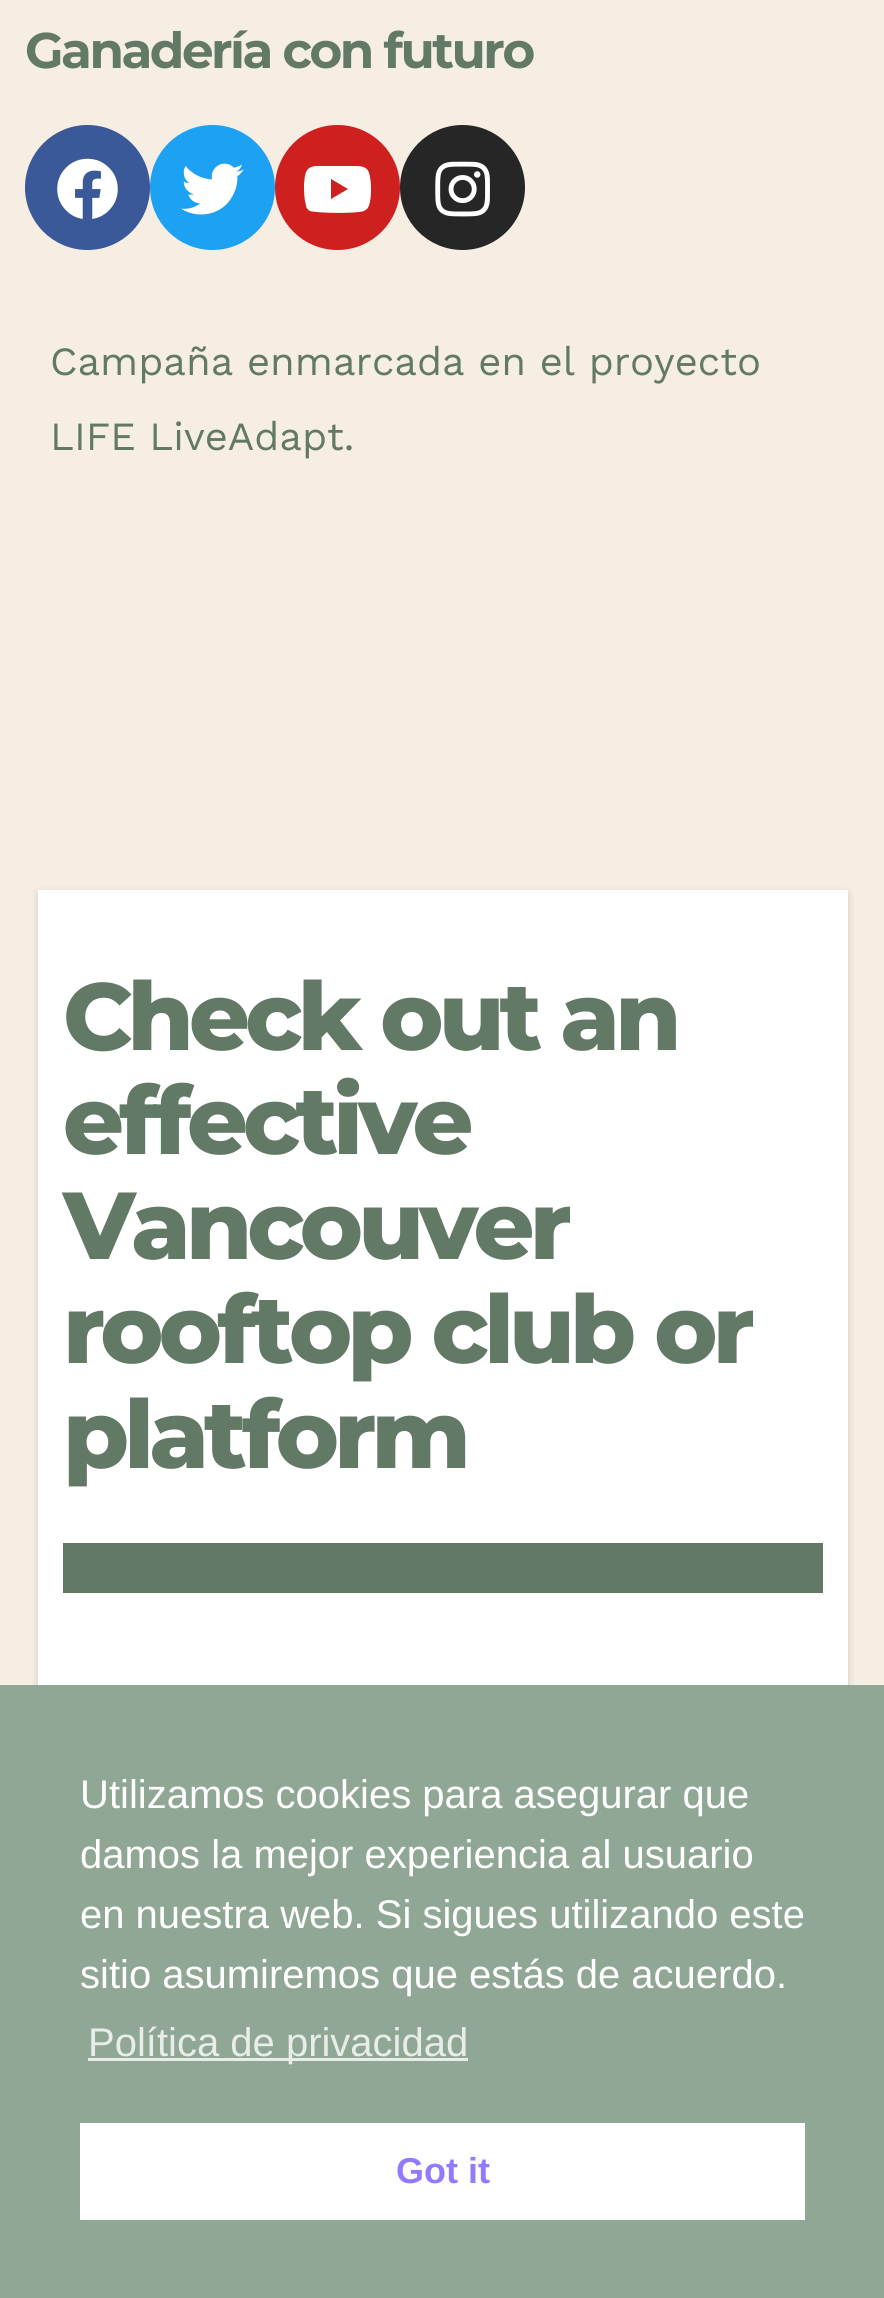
import math
import cairo

surface = cairo.ImageSurface(cairo.FORMAT_RGB24, 884, 2298)
ctx = cairo.Context(surface)
options = cairo.FontOptions()
options.set_hint_metrics(cairo.HINT_METRICS_OFF)
options.set_hint_style(cairo.HINT_STYLE_NONE)
ctx.set_font_options(options)
ctx.set_miter_limit(4)


def set_color(code):
    ctx.set_source_rgb(*(v / 255 for v in bytes.fromhex(code[-6:])))


def draw_text(x, y, s, family, size, color, bold=False, italic=False):
    ctx.select_font_face(family, cairo.FONT_SLANT_ITALIC if italic else cairo.FONT_SLANT_NORMAL, cairo.FONT_WEIGHT_BOLD if bold else cairo.FONT_WEIGHT_NORMAL)
    ctx.set_font_size(size)
    set_color(color)
    ctx.move_to(x, y)
    ctx.show_text(s)


def draw_spaced(x, y, s, letter, word):
    ctx.move_to(x, y)
    for ch in s:
        ctx.show_text(ch)
        ctx.rel_move_to(letter + word * (ch == ' '), 0)


def fill_rect(x, y, w, h, color):
    set_color(color)
    ctx.rectangle(x, y, w, h)
    ctx.fill()


def rounded_rect(x, y, w, h, r):
    ctx.new_sub_path()
    for i, (u, v) in enumerate([(x + w - r, y + h - r), (x + r, y + h - r), (x + r, y + r), (x + w - r, y + r)]):
        ctx.arc(u, v, r, i * math.pi / 2, (i + 1) * math.pi / 2)
    ctx.close_path()


def draw_shadow(x, y, w, h, r, blur, alpha):
    ctx.push_group_with_content(cairo.CONTENT_ALPHA)
    ctx.set_operator(cairo.OPERATOR_SOURCE)
    for i in range(15, -16, -2):
        e = blur * i / 6
        if min(w, h) + 2 * e > 0:
            ctx.set_source_rgba(0, 0, 0, alpha * math.erfc((i - 1) / 8.5) / 2)
            rounded_rect(x - e, y - e, w + 2 * e, h + 2 * e, max(0, min(r + e + blur * .6, min(w, h) / 2 + e)))
            ctx.fill()
    ctx.mask(ctx.pop_group())


def draw_image(path, x, y, w, h):
    ctx.save()
    ctx.set_source_surface(cairo.ImageSurface.create_from_png(path), x, y)
    ctx.rectangle(x, y, w, h)
    ctx.fill()
    ctx.restore()


set_color("#f6eee3")
ctx.paint()
ctx.select_font_face("Montserrat", cairo.FONT_SLANT_NORMAL, cairo.FONT_WEIGHT_BOLD)
ctx.set_font_size(50)
set_color("#617965")
draw_spaced(25, 68, "Ganadería con futuro", -2.5, 0)
set_color("#3b5998")
ctx.new_path()
ctx.arc(87.5, 187.5, 62.5, 0, 2 * math.pi)
ctx.fill()
draw_image("assets/img1.png", 57, 158, 61, 61)
set_color("#1da1f2")
ctx.arc(212.5, 187.5, 62.5, 0, 2 * math.pi)
ctx.fill()
draw_image("assets/img2.png", 181, 163, 63, 52)
set_color("#cd201f")
ctx.arc(337.5, 187.5, 62.5, 0, 2 * math.pi)
ctx.fill()
set_color("#ffffff")
ctx.new_path()
ctx.move_to(369, 173)
ctx.curve_to(372, 181, 372, 204, 367, 209)
ctx.line_to(364, 211)
ctx.curve_to(355, 214, 315, 213, 310, 211)
ctx.curve_to(308, 210, 306, 208, 306, 205)
ctx.curve_to(304, 199, 304, 191, 304, 184)
ctx.curve_to(305, 174, 305, 167, 316, 166)
ctx.line_to(331, 166)
ctx.line_to(351, 166)
ctx.curve_to(357, 166, 367, 165, 369, 173)
ctx.close_path()
ctx.move_to(331, 199)
ctx.line_to(348, 189)
ctx.line_to(331, 179)
ctx.close_path()
ctx.fill()
set_color("#262626")
ctx.arc(462.5, 187.5, 62.5, 0, 2 * math.pi)
ctx.fill()
draw_image("assets/img3.png", 435, 161, 55, 56)
draw_text(50, 375, "Campaña enmarcada en el proyecto", "Work Sans", 40, "#617965")
draw_text(50, 450, "LIFE LiveAdapt.", "Work Sans", 40, "#617965")
set_color("#000000")
draw_shadow(38, 893, 810, 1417, 0, 4, 0.15)
fill_rect(38, 890, 810, 795, "#ffffff")
ctx.select_font_face("Montserrat ExtraBold")
ctx.set_font_size(95)
set_color("#617965")
draw_spaced(63, 1050, "Check out an", -4.75, 0)
draw_spaced(63, 1154, "effective", -4.75, 0)
draw_spaced(63, 1259, "Vancouver", -4.75, 0)
draw_spaced(63, 1363, "rooftop club or", -4.75, 0)
draw_spaced(63, 1468, "platform", -4.75, 0)
fill_rect(63, 1543, 760, 50, "#617965")
fill_rect(0, 1685, 884, 613, "#8fa794")
draw_text(80, 1808, "Utilizamos cookies para asegurar que", "Liberation Sans", 40, "#ffffff")
draw_text(80, 1868, "damos la mejor experiencia al usuario", "Liberation Sans", 40, "#ffffff")
draw_text(80, 1928, "en nuestra web. Si sigues utilizando este", "Liberation Sans", 40, "#ffffff")
draw_text(80, 1988, "sitio asumiremos que estás de acuerdo.", "Liberation Sans", 40, "#ffffff")
fill_rect(88, 2058, 380, 3, "#e9edea")
draw_text(88, 2056, "Política de privacidad", "Liberation Sans", 40, "#e9edea")
fill_rect(80, 2123, 725, 97, "#ffffff")
draw_text(396, 2183, "Got it", "Liberation Sans", 36, "#937afc", bold=True)
surface.write_to_png("output.png")
